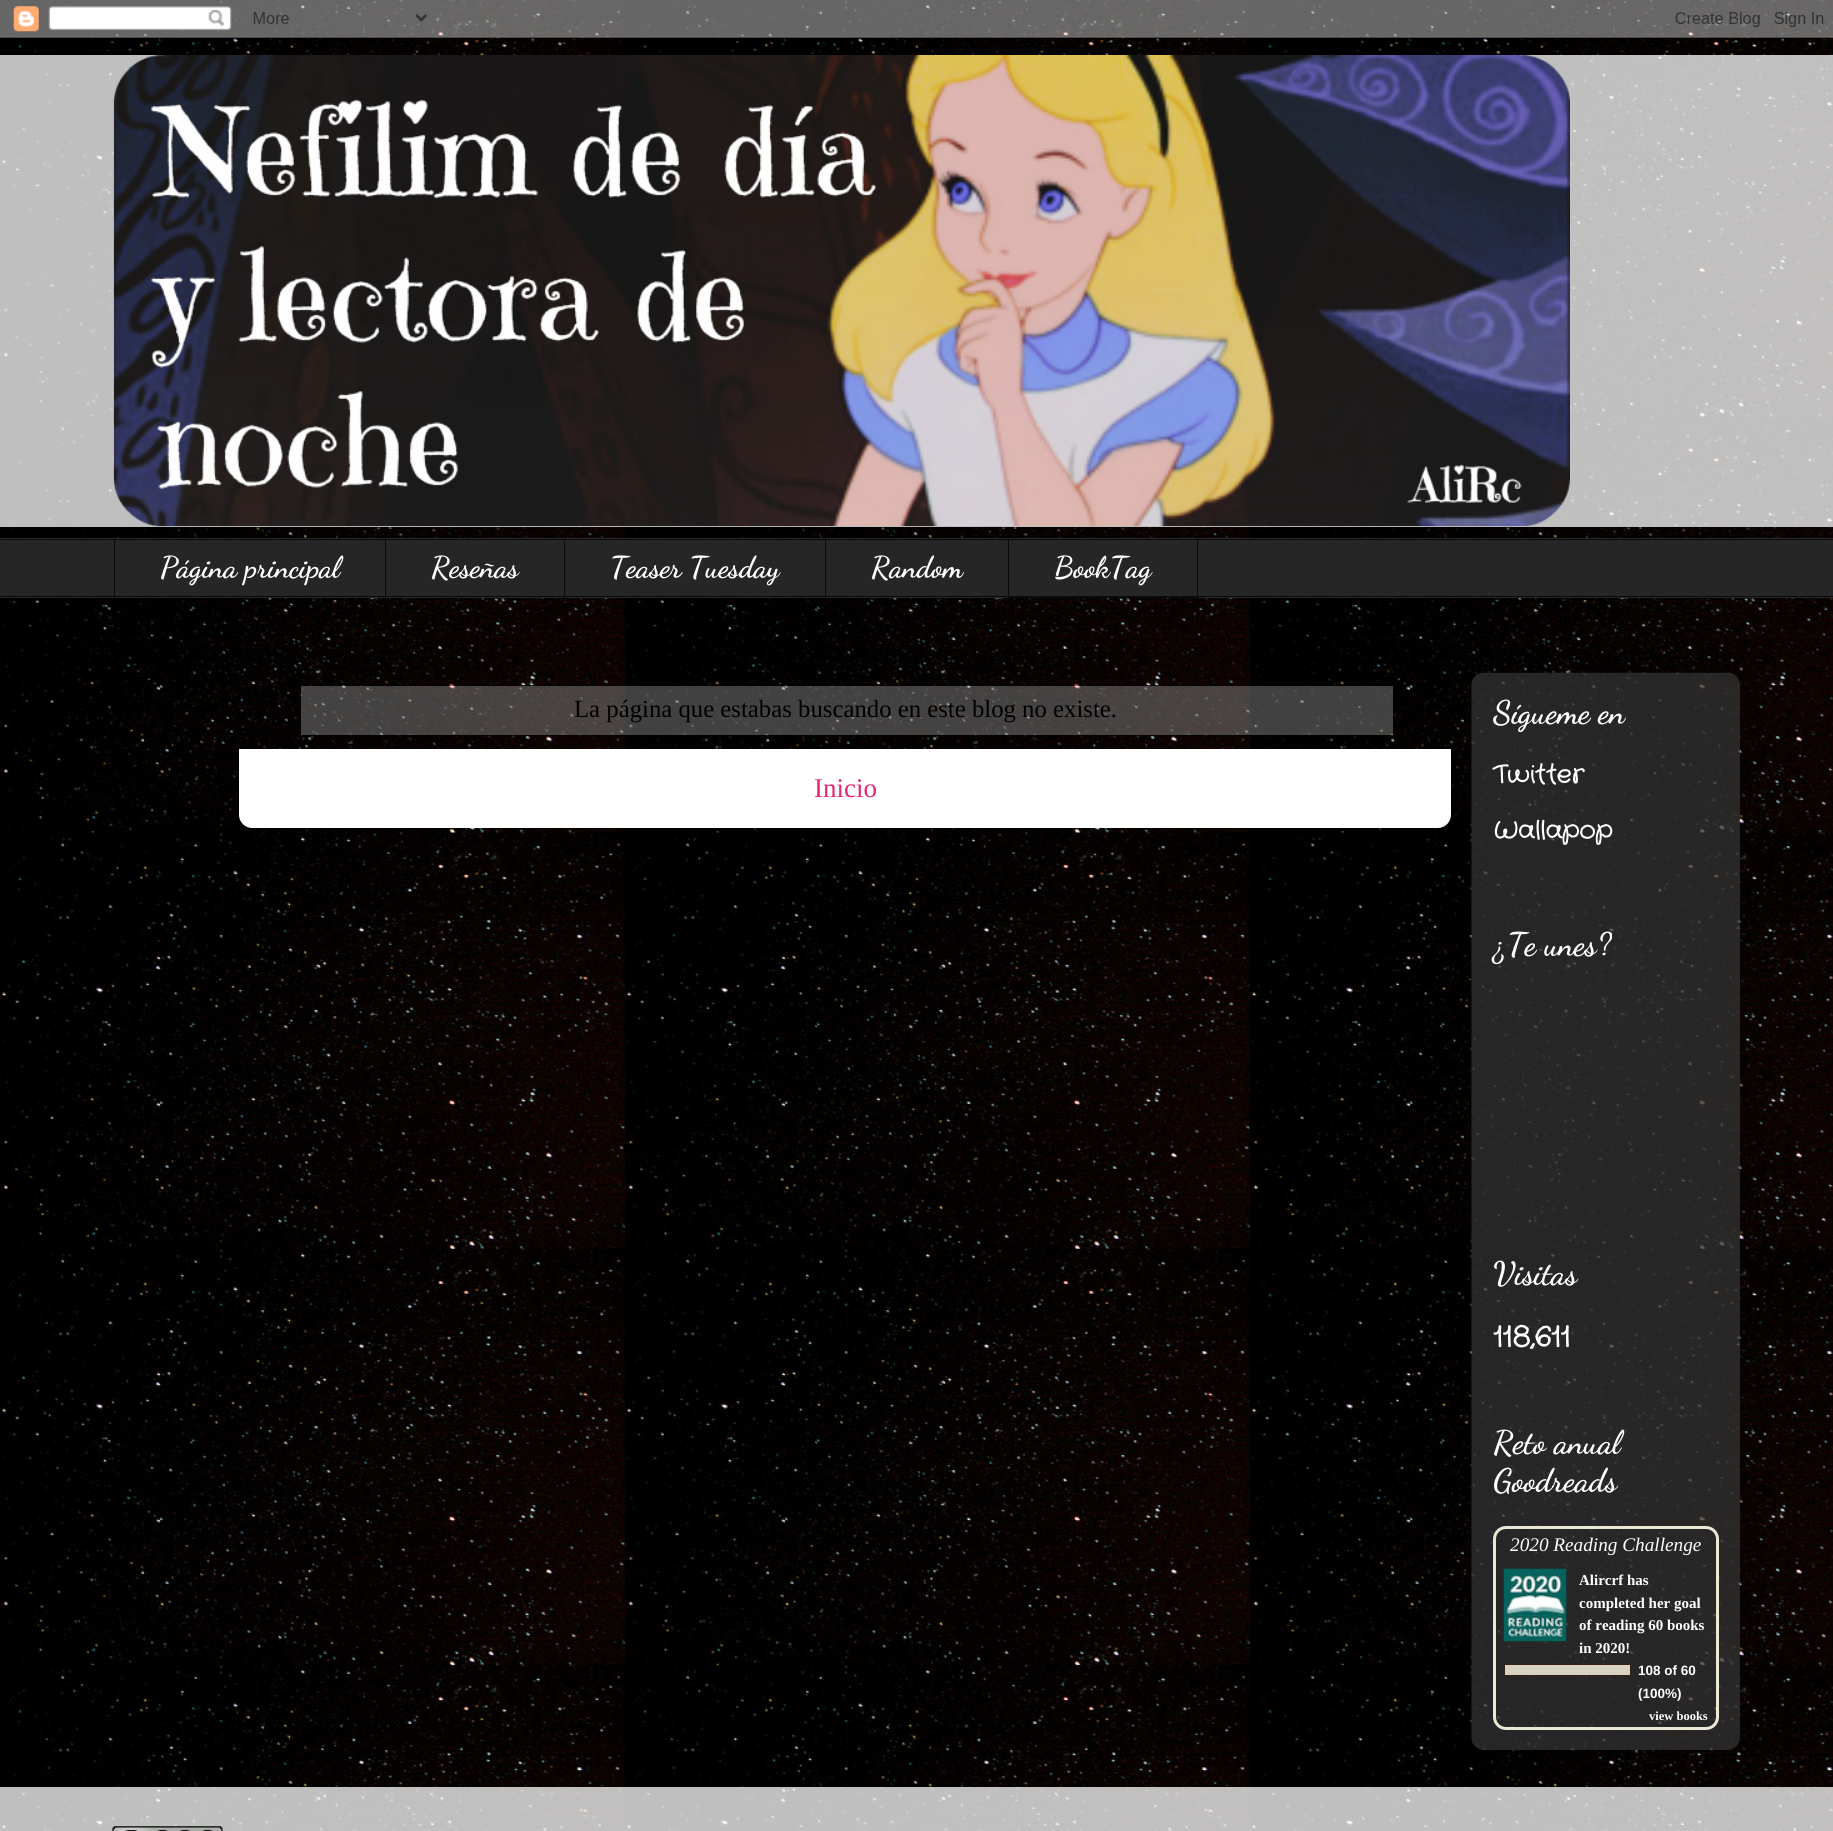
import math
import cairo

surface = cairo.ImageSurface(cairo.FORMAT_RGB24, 1833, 1831)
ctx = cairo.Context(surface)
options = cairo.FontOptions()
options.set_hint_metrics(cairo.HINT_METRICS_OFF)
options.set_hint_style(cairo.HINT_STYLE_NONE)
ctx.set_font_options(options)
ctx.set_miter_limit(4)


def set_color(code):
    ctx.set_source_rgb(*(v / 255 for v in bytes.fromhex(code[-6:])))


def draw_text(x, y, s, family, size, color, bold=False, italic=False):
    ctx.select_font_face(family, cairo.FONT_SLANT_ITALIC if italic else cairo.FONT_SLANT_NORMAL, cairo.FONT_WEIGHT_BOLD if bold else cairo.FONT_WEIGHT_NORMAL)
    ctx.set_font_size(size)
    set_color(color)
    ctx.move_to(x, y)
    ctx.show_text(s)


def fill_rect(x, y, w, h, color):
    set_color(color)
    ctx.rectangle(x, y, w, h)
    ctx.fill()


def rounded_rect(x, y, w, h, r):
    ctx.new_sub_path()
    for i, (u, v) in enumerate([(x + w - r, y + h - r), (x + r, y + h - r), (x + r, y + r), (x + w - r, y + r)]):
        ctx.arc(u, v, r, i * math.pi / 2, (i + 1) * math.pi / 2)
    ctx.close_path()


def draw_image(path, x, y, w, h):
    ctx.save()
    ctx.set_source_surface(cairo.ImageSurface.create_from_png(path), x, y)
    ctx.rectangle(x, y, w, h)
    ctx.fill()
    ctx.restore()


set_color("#ffffff")
ctx.paint()
draw_image("assets/img1.png", 0, 0, 1833, 1831)
draw_image("assets/img2.png", 0, 0, 1833, 38)
ctx.set_source_rgba(1, 1, 1, 0.75)
ctx.rectangle(0, 55, 1833, 472)
ctx.fill()
draw_image("assets/img3.png", 113, 55, 1457, 472)
fill_rect(0, 540, 1833, 58, "#000000")
ctx.set_source_rgba(0.2, 0.2, 0.2, 0.75)
ctx.rectangle(0, 538, 1833, 60)
ctx.fill()
fill_rect(0, 539, 1833, 1, "#0a0a0a")
fill_rect(114, 539, 1, 59, "#0a0a0a")
draw_text(160, 577, "Página principal", "Dancing Script", 30, "#ffffff", bold=True)
fill_rect(385, 539, 1, 59, "#0a0a0a")
draw_text(431, 577, "Reseñas", "Dancing Script", 30, "#ffffff", bold=True)
fill_rect(564, 539, 1, 59, "#0a0a0a")
draw_text(610, 577, "Teaser Tuesday", "Dancing Script", 30, "#ffffff", bold=True)
fill_rect(825, 539, 1, 59, "#0a0a0a")
draw_text(871, 577, "Random", "Dancing Script", 30, "#ffffff", bold=True)
ctx.rectangle(1008.5, 539.5, 189, 58)
set_color("#0a0a0a")
ctx.set_line_width(1)
ctx.stroke()
draw_text(1054, 577, "BookTag", "Dancing Script", 30, "#ffffff", bold=True)
fill_rect(0, 596, 1833, 1, "#0a0a0a")
ctx.rectangle(300.5, 685.5, 1093, 50)
ctx.set_source_rgba(0, 0, 0, 0.4)
ctx.stroke()
ctx.set_source_rgba(0.8, 0.8, 0.8, 0.32)
ctx.rectangle(301, 686, 1092, 49)
ctx.fill()
draw_text(574, 717, "La página que estabas buscando en este blog no existe.", "Liberation Serif", 24.75, "#000000")
set_color("#ffffff")
ctx.new_path()
ctx.move_to(239, 749)
ctx.line_to(1451, 749)
ctx.line_to(1451, 815)
ctx.curve_to(1451, 822, 1445, 828, 1438, 828)
ctx.line_to(252, 828)
ctx.curve_to(245, 828, 239, 822, 239, 815)
ctx.close_path()
ctx.fill()
draw_text(814, 797, "Inicio", "Liberation Serif", 27, "#e72671")
draw_image("assets/img4.png", 1471, 672, 269, 1078)
draw_text(1493, 723, "Sígueme en", "Dancing Script", 32.5, "#ffffff", bold=True)
draw_text(1493, 782, "Twitter", "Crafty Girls", 25, "#ffffff", bold=True)
draw_text(1493, 838, "Wallapop", "Crafty Girls", 25, "#ffffff", bold=True)
draw_text(1493, 955, "¿Te unes?", "Dancing Script", 32.5, "#ffffff", bold=True)
draw_text(1493, 1284, "Visitas", "Dancing Script", 32.5, "#ffffff", bold=True)
draw_text(1493, 1346, "118,611", "Crafty Girls", 30, "#ffffff", bold=True)
draw_text(1493, 1453, "Reto anual", "Dancing Script", 32.5, "#ffffff", bold=True)
draw_text(1493, 1491, "Goodreads", "Dancing Script", 32.5, "#ffffff", bold=True)
rounded_rect(1494.5, 1527.5, 223, 201, 11.5)
set_color("#ebe8d5")
ctx.set_line_width(3)
ctx.stroke()
draw_text(1510, 1551, "2020 Reading Challenge", "Liberation Serif", 19.25, "#ffffff", italic=True)
draw_image("assets/img5.png", 1503, 1568, 64, 74)
draw_text(1579, 1585, "Alircrf has", "Liberation Serif", 15, "#ffffff", bold=True)
draw_text(1579, 1608, "completed her goal", "Liberation Serif", 15, "#ffffff", bold=True)
draw_text(1579, 1630, "of reading 60 books", "Liberation Serif", 15, "#ffffff", bold=True)
draw_text(1579, 1653, "in 2020!", "Liberation Serif", 15, "#ffffff", bold=True)
ctx.rectangle(1504.5, 1664.5, 126, 11)
set_color("#382110")
ctx.set_line_width(1)
ctx.stroke()
fill_rect(1505, 1665, 125, 10, "#d7d2c4")
draw_text(1638, 1675, "108 of 60", "Liberation Sans", 13.5, "#ffffff", bold=True)
draw_text(1638, 1698, "(100%)", "Liberation Sans", 13.5, "#ffffff", bold=True)
draw_text(1649, 1720, "view books", "Liberation Serif", 12.5, "#ffffff", bold=True)
ctx.set_source_rgba(1, 1, 1, 0.75)
ctx.rectangle(0, 1787, 1833, 44)
ctx.fill()
draw_image("assets/img6.png", 112, 1826, 111, 5)
surface.write_to_png("output.png")
